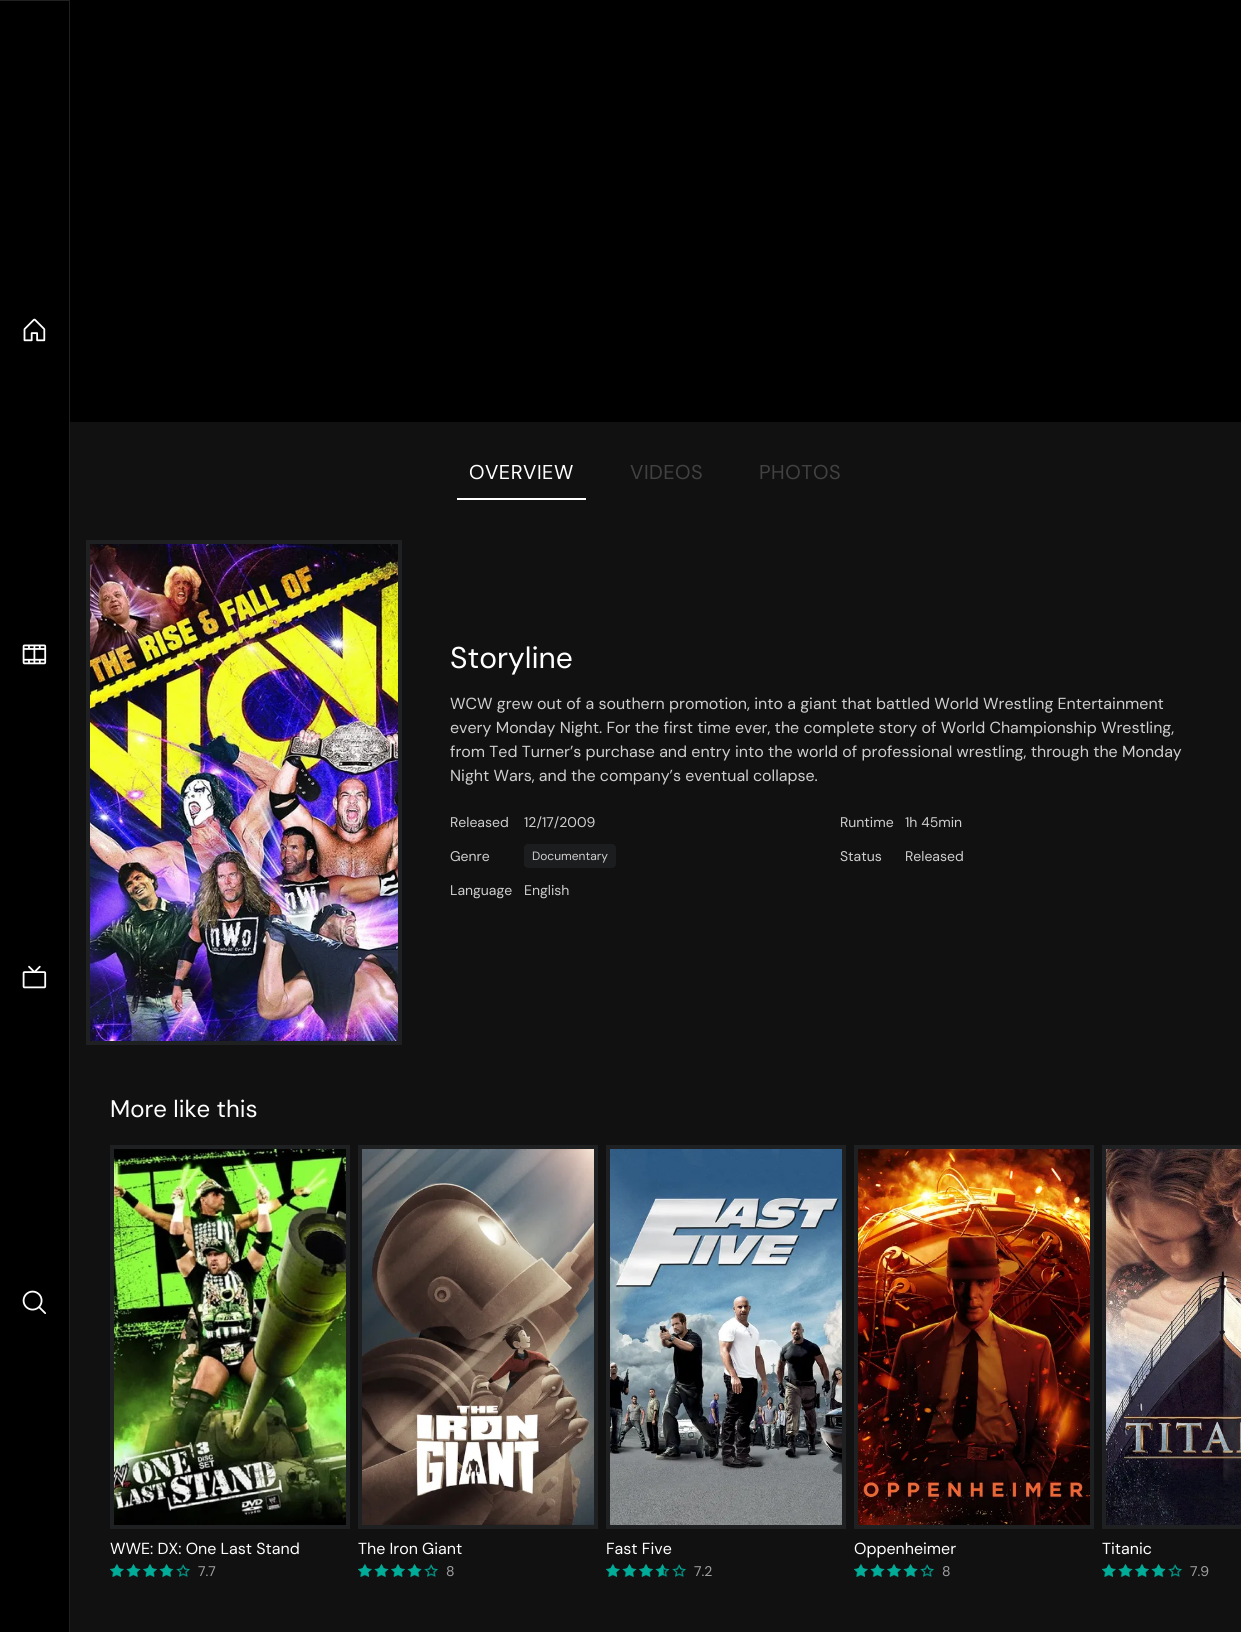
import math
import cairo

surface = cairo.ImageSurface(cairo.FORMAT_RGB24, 1241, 1632)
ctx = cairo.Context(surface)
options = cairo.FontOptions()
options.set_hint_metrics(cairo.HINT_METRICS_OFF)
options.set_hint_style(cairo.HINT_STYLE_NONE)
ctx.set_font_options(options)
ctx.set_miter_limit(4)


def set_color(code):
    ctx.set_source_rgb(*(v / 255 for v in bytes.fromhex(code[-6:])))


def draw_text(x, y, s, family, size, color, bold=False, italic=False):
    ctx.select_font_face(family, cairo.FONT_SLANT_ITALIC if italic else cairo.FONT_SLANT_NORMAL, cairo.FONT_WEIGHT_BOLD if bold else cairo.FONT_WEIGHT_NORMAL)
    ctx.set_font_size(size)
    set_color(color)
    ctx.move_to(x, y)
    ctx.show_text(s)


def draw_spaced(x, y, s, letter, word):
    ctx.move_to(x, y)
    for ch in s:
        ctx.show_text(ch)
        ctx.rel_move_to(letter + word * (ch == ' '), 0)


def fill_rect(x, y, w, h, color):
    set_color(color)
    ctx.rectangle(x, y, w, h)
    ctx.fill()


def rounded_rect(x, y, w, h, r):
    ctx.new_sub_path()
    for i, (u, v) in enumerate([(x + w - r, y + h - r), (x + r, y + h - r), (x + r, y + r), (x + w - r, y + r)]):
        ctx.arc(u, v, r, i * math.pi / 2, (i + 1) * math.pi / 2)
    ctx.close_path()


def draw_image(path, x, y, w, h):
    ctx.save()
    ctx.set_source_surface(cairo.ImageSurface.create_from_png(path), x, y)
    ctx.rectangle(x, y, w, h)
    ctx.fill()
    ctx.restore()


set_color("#111111")
ctx.paint()
fill_rect(0, 0, 70, 1632, "#000000")
set_color("#1f2123")
ctx.new_path()
ctx.move_to(0, 0)
ctx.line_to(70, 0)
ctx.line_to(69, 1)
ctx.line_to(0, 1)
ctx.close_path()
ctx.fill()
ctx.set_source_rgba(0.612, 0.639, 0.686, 0.2)
ctx.new_path()
ctx.move_to(70, 0)
ctx.line_to(70, 1632)
ctx.line_to(69, 1632)
ctx.line_to(69, 1)
ctx.close_path()
ctx.fill()
draw_image("assets/img1.png", 23, 318, 23, 24)
draw_image("assets/img2.png", 22, 644, 25, 21)
draw_image("assets/img3.png", 22, 965, 25, 24)
draw_image("assets/img4.png", 22, 1290, 25, 24)
fill_rect(70, 0, 1171, 422, "#000000")
fill_rect(457, 498, 129, 2, "#ffffff")
ctx.select_font_face("DM Sans")
ctx.set_font_size(20)
draw_spaced(469, 479, "OVERVIEW", 0.5, 0)
set_color("#414141")
draw_spaced(630, 479, "VIDEOS", 0.5, 0)
draw_spaced(759, 479, "PHOTOS", 0.5, 0)
ctx.rectangle(88, 542, 312, 501)
set_color("#1f2021")
ctx.set_line_width(4)
ctx.stroke()
draw_image("assets/img5.png", 90, 544, 308, 497)
draw_text(450, 668, "Storyline", "DM Sans", 30, "#ffffff")
draw_text(450, 709, "WCW grew out of a southern promotion, into a giant that battled World Wrestling Entertainment", "DM Sans", 16, "#cfcfcf")
draw_text(450, 733, "every Monday Night. For the first time ever, the complete story of World Championship Wrestling,", "DM Sans", 16, "#cfcfcf")
draw_text(450, 757, "from Ted Turner’s purchase and entry into the world of professional wrestling, through the Monday", "DM Sans", 16, "#cfcfcf")
draw_text(450, 781, "Night Wars, and the company’s eventual collapse.", "DM Sans", 16, "#cfcfcf")
draw_text(450, 827, "Released", "DM Sans", 14, "#cfcfcf")
draw_text(524, 827, "12/17/2009", "DM Sans", 14, "#cfcfcf")
draw_text(840, 827, "Runtime", "DM Sans", 14, "#cfcfcf")
draw_text(905, 827, "1h 45min", "DM Sans", 14, "#cfcfcf")
draw_text(450, 861, "Genre", "DM Sans", 14, "#cfcfcf")
set_color("#1c1d1e")
rounded_rect(524, 844, 92, 24, 4)
ctx.fill()
draw_text(532, 860, "Documentary", "DM Sans", 12, "#cfcfcf")
draw_text(840, 861, "Status", "DM Sans", 14, "#cfcfcf")
draw_text(905, 861, "Released", "DM Sans", 14, "#cfcfcf")
draw_text(450, 895, "Language", "DM Sans", 14, "#cfcfcf")
draw_text(524, 895, "English", "DM Sans", 14, "#cfcfcf")
draw_text(110, 1117, "More like this", "DM Sans", 24, "#ffffff")
fill_rect(110, 1145, 240, 384, "#1f2021")
draw_image("assets/img6.png", 114, 1149, 232, 376)
draw_text(110, 1554, "WWE: DX: One Last Stand", "DM Sans", 16, "#ffffff")
draw_image("assets/img7.png", 110, 1564, 80, 13)
draw_image("assets/img8.png", 110, 1564, 62, 13)
draw_text(198, 1576, "7.7", "DM Sans", 14, "#a0a0a0")
fill_rect(358, 1145, 240, 384, "#1f2021")
draw_image("assets/img9.png", 362, 1149, 232, 376)
draw_text(358, 1554, "The Iron Giant", "DM Sans", 16, "#ffffff")
draw_image("assets/img7.png", 358, 1564, 80, 13)
draw_image("assets/img10.png", 358, 1564, 64, 13)
draw_text(446, 1576, "8", "DM Sans", 14, "#a0a0a0")
fill_rect(606, 1145, 240, 384, "#1f2021")
draw_image("assets/img11.png", 610, 1149, 232, 376)
draw_text(606, 1554, "Fast Five", "DM Sans", 16, "#ffffff")
draw_image("assets/img7.png", 606, 1564, 80, 13)
draw_image("assets/img12.png", 606, 1564, 58, 13)
draw_text(694, 1576, "7.2", "DM Sans", 14, "#a0a0a0")
fill_rect(854, 1145, 240, 384, "#1f2021")
draw_image("assets/img13.png", 858, 1149, 232, 376)
draw_text(854, 1554, "Oppenheimer", "DM Sans", 16, "#ffffff")
draw_image("assets/img7.png", 854, 1564, 80, 13)
draw_image("assets/img14.png", 854, 1564, 64, 13)
draw_text(942, 1576, "8", "DM Sans", 14, "#a0a0a0")
fill_rect(1102, 1145, 139, 384, "#1f2021")
draw_image("assets/img15.png", 1106, 1149, 135, 376)
draw_text(1102, 1554, "Titanic", "DM Sans", 16, "#ffffff")
draw_image("assets/img7.png", 1102, 1564, 80, 13)
draw_image("assets/img16.png", 1102, 1564, 63, 13)
draw_text(1190, 1576, "7.9", "DM Sans", 14, "#a0a0a0")
surface.write_to_png("output.png")
